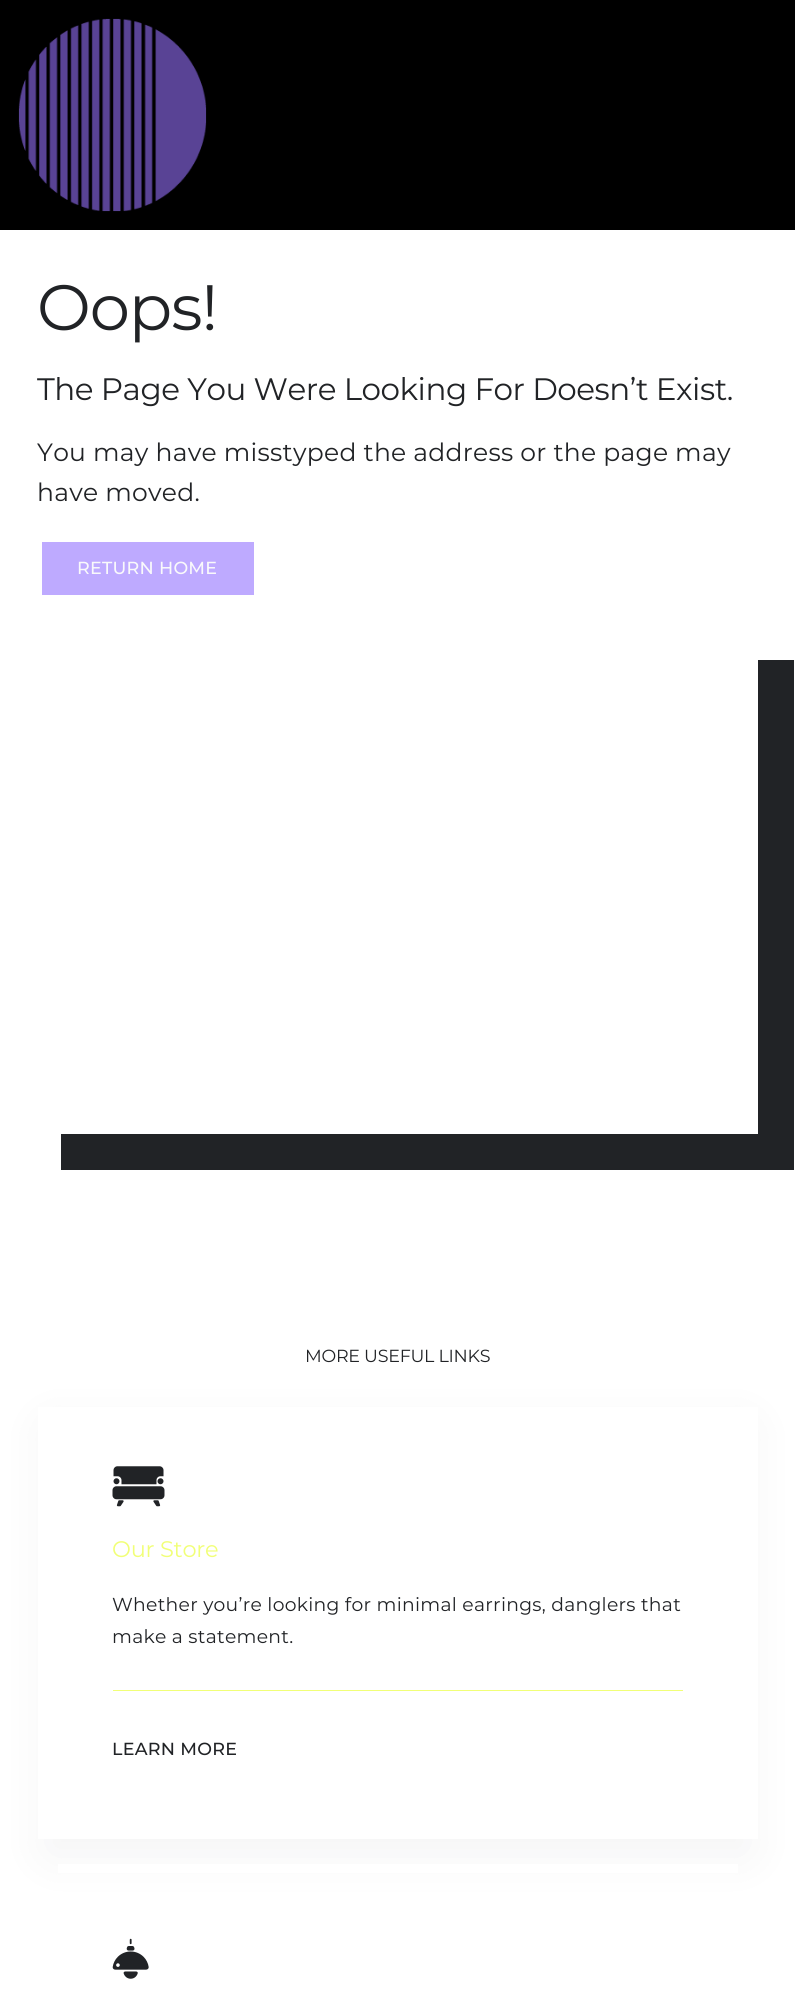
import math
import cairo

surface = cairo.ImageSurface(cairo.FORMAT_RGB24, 795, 1998)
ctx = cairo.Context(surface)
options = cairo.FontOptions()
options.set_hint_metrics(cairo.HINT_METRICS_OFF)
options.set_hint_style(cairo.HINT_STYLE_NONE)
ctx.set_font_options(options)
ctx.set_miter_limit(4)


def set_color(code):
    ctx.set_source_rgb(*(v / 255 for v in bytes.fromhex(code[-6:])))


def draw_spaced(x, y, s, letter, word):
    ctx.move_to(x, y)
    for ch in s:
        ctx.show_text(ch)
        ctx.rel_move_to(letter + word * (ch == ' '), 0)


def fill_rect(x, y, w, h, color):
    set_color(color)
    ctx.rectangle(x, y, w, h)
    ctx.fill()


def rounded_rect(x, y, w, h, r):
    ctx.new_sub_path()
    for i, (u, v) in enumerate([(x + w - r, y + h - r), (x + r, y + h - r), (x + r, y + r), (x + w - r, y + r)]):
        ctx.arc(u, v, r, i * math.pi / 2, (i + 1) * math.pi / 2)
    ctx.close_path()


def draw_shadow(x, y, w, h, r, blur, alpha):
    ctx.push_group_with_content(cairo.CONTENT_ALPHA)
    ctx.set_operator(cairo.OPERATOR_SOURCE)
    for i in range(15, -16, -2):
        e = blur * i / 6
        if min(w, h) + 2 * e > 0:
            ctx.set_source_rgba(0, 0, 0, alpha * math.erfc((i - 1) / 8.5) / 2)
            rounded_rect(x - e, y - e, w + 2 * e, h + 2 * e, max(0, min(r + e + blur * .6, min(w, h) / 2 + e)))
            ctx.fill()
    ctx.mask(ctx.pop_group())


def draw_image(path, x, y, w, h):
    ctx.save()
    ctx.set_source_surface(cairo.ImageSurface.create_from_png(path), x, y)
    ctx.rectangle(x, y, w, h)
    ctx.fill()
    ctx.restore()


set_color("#ffffff")
ctx.paint()
fill_rect(0, 0, 795, 230, "#000000")
draw_image("assets/img1.png", 18, 18, 189, 194)
ctx.select_font_face("Montserrat")
ctx.set_font_size(64)
set_color("#212326")
draw_spaced(37, 330, "Oops!", -1, 0)
ctx.set_font_size(31)
draw_spaced(37, 400, "The Page You Were Looking For Doesn’t Exist.", -0.45, 0)
ctx.set_font_size(25)
draw_spaced(37, 461, "You may have misstyped the address or the page may", 0.28, 0)
draw_spaced(37, 501, "have moved.", 0.28, 0)
fill_rect(42, 542, 212, 53, "#beaaff")
ctx.select_font_face("Montserrat Medium")
ctx.set_font_size(17.5)
set_color("#f9f9fb")
draw_spaced(77, 574, "RETURN HOME", 0.25, 0)
set_color("#212326")
ctx.new_path()
ctx.move_to(61, 1134)
ctx.line_to(61, 1170)
ctx.line_to(794, 1170)
ctx.line_to(794, 660)
ctx.line_to(758, 660)
ctx.line_to(758, 1134)
ctx.close_path()
ctx.fill()
ctx.select_font_face("Montserrat")
draw_spaced(305, 1362, "MORE USEFUL LINKS", -0.25, 0)
set_color("#131516")
draw_shadow(48, 1426, 700, 428, 0, 25, 0.05)
fill_rect(38, 1407, 720, 432, "#ffffff")
draw_image("assets/img2.png", 112, 1466, 53, 41)
ctx.set_font_size(22.5)
set_color("#f1ff77")
draw_spaced(112, 1557, "Our Store", -0.25, 0)
ctx.set_font_size(18.75)
set_color("#212326")
draw_spaced(112, 1611, "Whether you’re looking for minimal earrings, danglers that", 0.28, 0)
draw_spaced(112, 1643, "make a statement.", 0.28, 0)
fill_rect(113, 1690, 570, 1, "#f1ff77")
ctx.select_font_face("Montserrat Medium")
ctx.set_font_size(17.5)
set_color("#212326")
draw_spaced(112, 1755, "LEARN MORE", 0.28, 0)
fill_rect(58, 1864, 680, 9, "#ffffff")
draw_image("assets/img3.png", 112, 1938, 37, 41)
surface.write_to_png("output.png")
